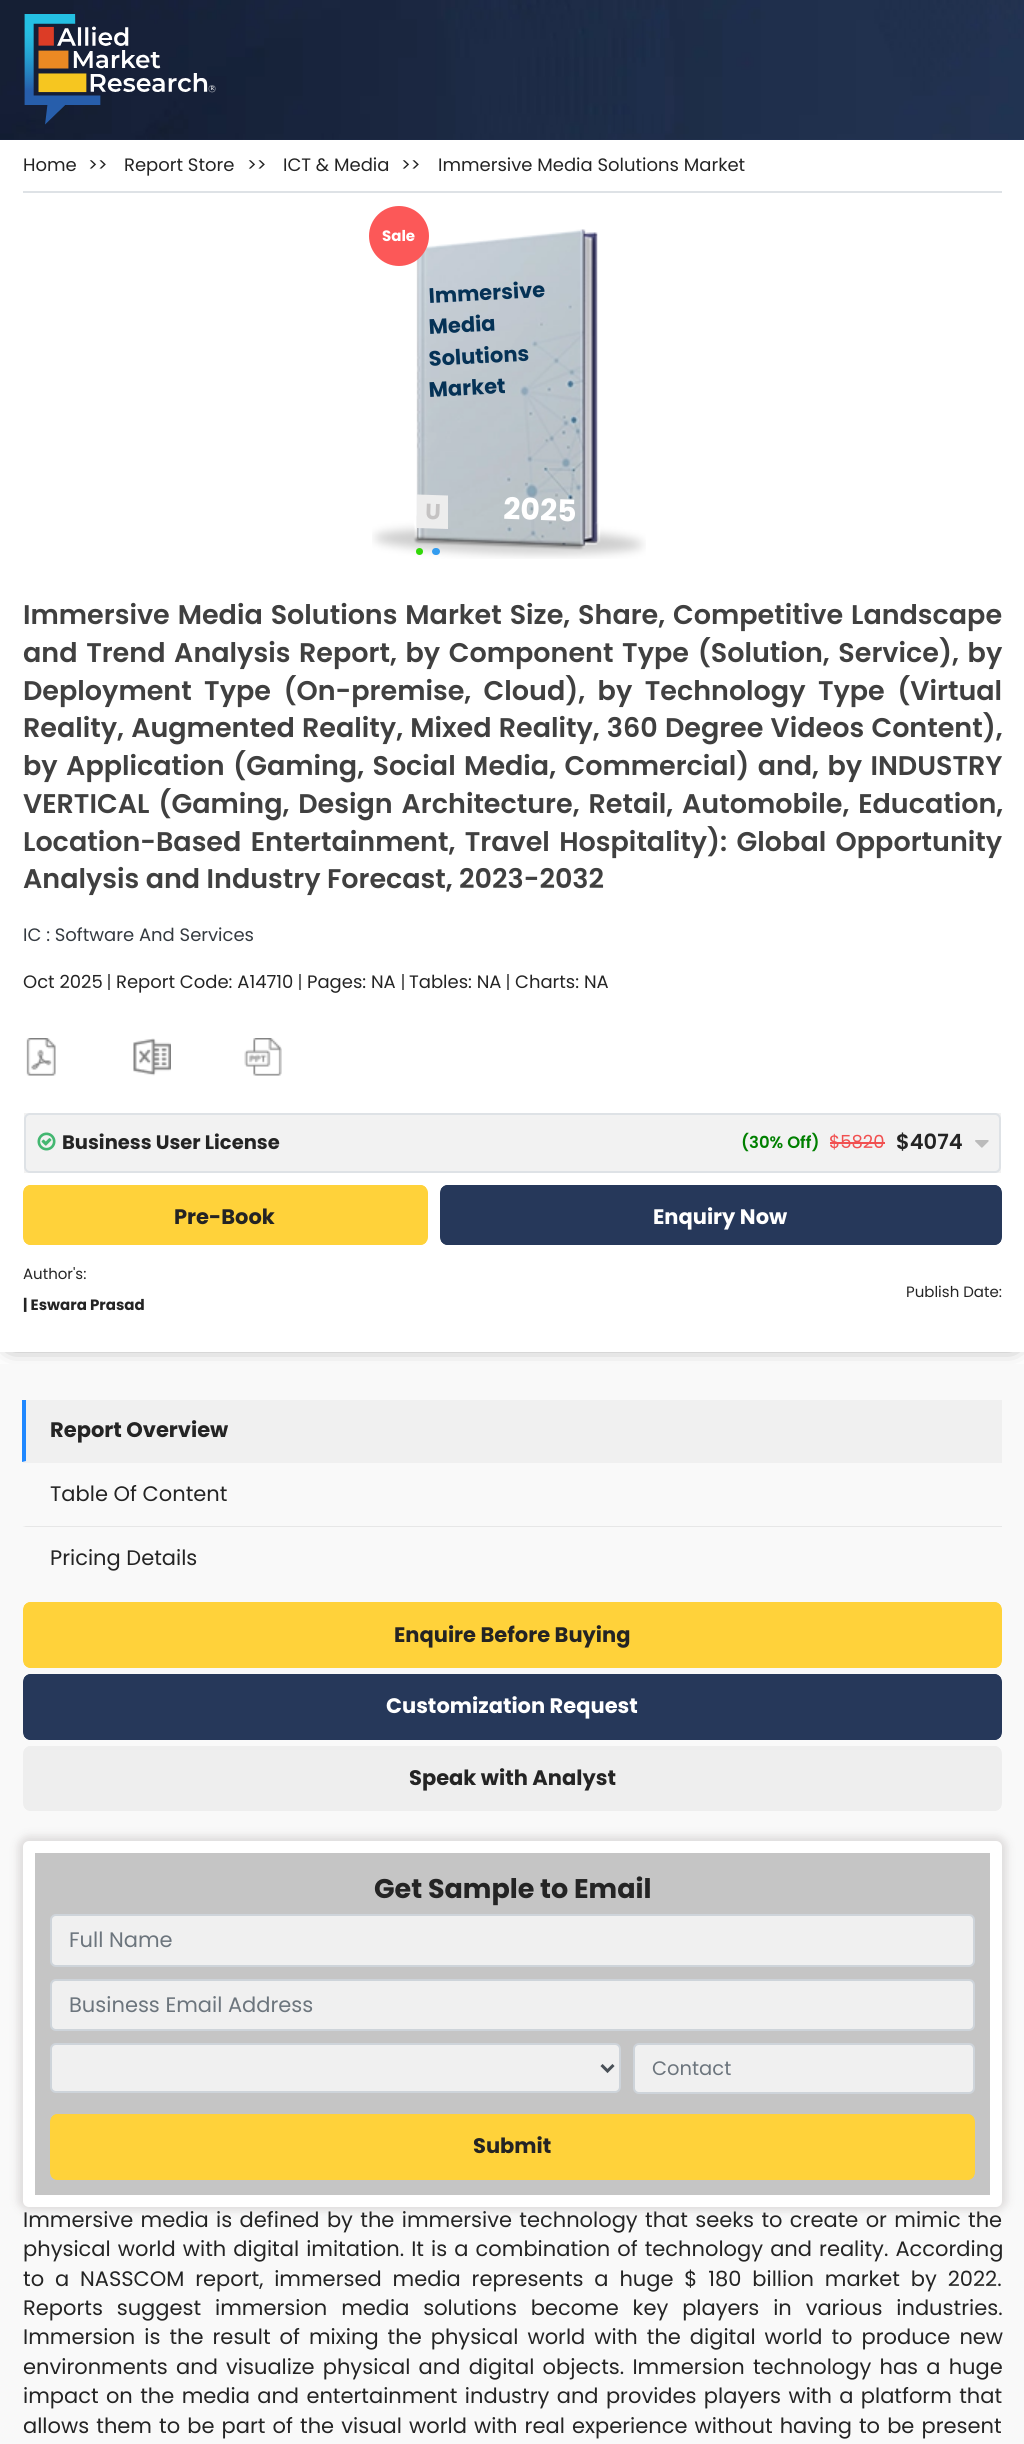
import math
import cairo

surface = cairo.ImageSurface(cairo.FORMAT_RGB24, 1024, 2444)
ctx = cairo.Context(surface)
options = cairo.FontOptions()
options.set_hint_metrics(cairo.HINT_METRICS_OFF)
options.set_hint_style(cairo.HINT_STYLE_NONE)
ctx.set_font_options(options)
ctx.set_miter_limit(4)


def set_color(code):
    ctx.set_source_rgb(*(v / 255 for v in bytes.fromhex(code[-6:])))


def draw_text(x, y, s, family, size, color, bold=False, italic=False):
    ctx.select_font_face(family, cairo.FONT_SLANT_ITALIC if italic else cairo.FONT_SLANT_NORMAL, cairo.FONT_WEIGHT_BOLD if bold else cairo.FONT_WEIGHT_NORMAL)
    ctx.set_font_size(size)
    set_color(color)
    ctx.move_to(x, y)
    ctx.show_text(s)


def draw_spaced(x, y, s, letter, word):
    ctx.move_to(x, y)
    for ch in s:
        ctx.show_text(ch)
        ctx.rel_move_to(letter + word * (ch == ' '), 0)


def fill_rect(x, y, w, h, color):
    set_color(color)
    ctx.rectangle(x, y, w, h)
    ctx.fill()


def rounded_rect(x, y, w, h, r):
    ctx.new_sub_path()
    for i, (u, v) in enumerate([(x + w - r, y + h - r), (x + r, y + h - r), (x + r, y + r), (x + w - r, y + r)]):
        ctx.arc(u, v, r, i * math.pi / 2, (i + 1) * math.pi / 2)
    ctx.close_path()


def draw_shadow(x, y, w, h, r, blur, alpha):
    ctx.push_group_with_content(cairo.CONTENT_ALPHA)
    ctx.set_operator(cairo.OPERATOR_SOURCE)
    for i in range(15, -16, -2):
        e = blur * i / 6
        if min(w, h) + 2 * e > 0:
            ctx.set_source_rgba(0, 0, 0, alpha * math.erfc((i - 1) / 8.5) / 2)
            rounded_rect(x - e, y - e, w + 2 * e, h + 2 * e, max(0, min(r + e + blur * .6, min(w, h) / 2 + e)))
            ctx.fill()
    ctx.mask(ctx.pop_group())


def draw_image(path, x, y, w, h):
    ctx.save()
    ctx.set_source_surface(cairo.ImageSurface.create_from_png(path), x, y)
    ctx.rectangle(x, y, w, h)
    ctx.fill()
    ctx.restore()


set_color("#ffffff")
ctx.paint()
ctx.save()
ctx.set_fill_rule(cairo.FILL_RULE_EVEN_ODD)
ctx.new_path()
ctx.move_to(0, 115)
ctx.line_to(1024, 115)
ctx.line_to(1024, 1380)
ctx.line_to(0, 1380)
ctx.close_path()
ctx.move_to(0, 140)
ctx.line_to(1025, 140)
ctx.line_to(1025, 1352)
ctx.line_to(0, 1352)
ctx.close_path()
ctx.clip()
set_color("#000000")
draw_shadow(11, 152, 1003, 1191, 0, 12, 0.62)
ctx.restore()
gradient = cairo.LinearGradient(0, 70, 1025, 70)
gradient.add_color_stop_rgba(0, 0.094, 0.137, 0.235, 1)
gradient.add_color_stop_rgba(0.25, 0.11, 0.157, 0.263, 1)
gradient.add_color_stop_rgba(0.5, 0.125, 0.18, 0.294, 1)
gradient.add_color_stop_rgba(0.75, 0.137, 0.2, 0.322, 1)
gradient.add_color_stop_rgba(1, 0.153, 0.224, 0.353, 1)
ctx.set_source(gradient)
ctx.rectangle(0, 139, 1024, 1)
ctx.fill()
draw_image("assets/img1.png", 0, 0, 1024, 140)
draw_image("assets/img2.png", 24, 14, 192, 111)
fill_rect(23, 191, 979, 2, "#dee2e6")
draw_text(23, 171, "Home", "Poppins", 18, "#242424")
draw_text(88, 171, ">>", "Poppins", 18, "#242424")
draw_text(124, 171, "Report Store", "Poppins", 18, "#242424")
draw_text(247, 171, ">>", "Poppins", 18, "#242424")
draw_text(283, 171, "ICT & Media", "Poppins", 18, "#242424")
draw_text(401, 171, ">>", "Poppins", 18, "#242424")
draw_text(438, 171, "Immersive Media Solutions Market", "Poppins", 18, "#242424")
draw_image("assets/img3.png", 372, 229, 274, 330)
set_color("#fc5858")
ctx.arc(399, 236, 30, 0, 2 * math.pi)
ctx.fill()
draw_text(382, 241, "Sale", "Poppins", 15, "#ffffff", bold=True)
ctx.save()
ctx.translate(429, 303)
ctx.rotate(-3 * math.pi / 180)
draw_text(0, 0, "Immersive", "Poppins", 21, "#053256", bold=True)
ctx.restore()
ctx.save()
ctx.translate(429, 334)
ctx.rotate(-3 * math.pi / 180)
draw_text(0, 0, "Media", "Poppins", 21, "#053256", bold=True)
ctx.restore()
ctx.save()
ctx.translate(429, 366)
ctx.rotate(-3 * math.pi / 180)
draw_text(0, 0, "Solutions", "Poppins", 21, "#053256", bold=True)
ctx.restore()
ctx.save()
ctx.translate(429, 397)
ctx.rotate(-3 * math.pi / 180)
draw_text(0, 0, "Market", "Poppins", 21, "#053256", bold=True)
ctx.restore()
set_color("#ededed")
ctx.new_path()
ctx.move_to(417, 494.5)
ctx.line_to(448, 495.5)
ctx.line_to(448, 529)
ctx.line_to(417, 528)
ctx.close_path()
ctx.fill()
ctx.save()
ctx.translate(425, 519)
ctx.rotate(2 * math.pi / 180)
draw_text(0, 0, "U", "Poppins", 22, "#c5c3c3", bold=True)
ctx.restore()
ctx.save()
ctx.translate(503, 519)
ctx.rotate(2 * math.pi / 180)
draw_text(0, 0, "2025", "Poppins", 30, "#ffffff", bold=True)
ctx.restore()
set_color("#32d808")
ctx.new_path()
ctx.arc(419.5, 551.5, 3.5, 0, 2 * math.pi)
ctx.fill()
set_color("#339cef")
rounded_rect(432, 548, 8, 7, 3.5)
ctx.fill()
set_color("#ffffff")
rounded_rect(23, 566, 979, 786, 6)
ctx.fill()
ctx.select_font_face("Poppins SemiBold")
ctx.set_font_size(27)
set_color("#404040")
draw_spaced(23, 624, "Immersive Media Solutions Market Size, Share, Competitive Landscape", 0, 1.5)
draw_spaced(23, 662, "and Trend Analysis Report, by Component Type (Solution, Service), by", 0, 2.25)
draw_spaced(23, 700, "Deployment Type (On-premise, Cloud), by Technology Type (Virtual", 0, 6)
draw_spaced(23, 737, "Reality, Augmented Reality, Mixed Reality, 360 Degree Videos Content),", 0, 0.75)
draw_spaced(23, 775, "by Application (Gaming, Social Media, Commercial) and, by INDUSTRY", 0, 2)
draw_spaced(23, 813, "VERTICAL (Gaming, Design Architecture, Retail, Automobile, Education,", 0, 2.5)
draw_spaced(23, 851, "Location-Based Entertainment, Travel Hospitality): Global Opportunity", 0, 3)
draw_text(23, 888, "Analysis and Industry Forecast, 2023-2032", "Poppins SemiBold", 27, "#404040")
draw_text(23, 941, "IC : Software And Services", "Poppins", 18, "#343a40")
draw_text(23, 988, "Oct 2025", "Poppins", 18, "#242424")
fill_rect(108, 974, 2, 16, "#686868")
draw_text(116, 988, "Report Code: A14710", "Poppins", 18, "#242424")
fill_rect(299, 974, 2, 16, "#686868")
draw_text(307, 988, "Pages: NA", "Poppins", 18, "#242424")
fill_rect(402, 974, 2, 16, "#686868")
draw_text(409, 988, "Tables: NA", "Poppins", 18, "#242424")
fill_rect(507, 974, 2, 16, "#686868")
draw_text(515, 988, "Charts: NA", "Poppins", 18, "#242424")
draw_image("assets/img4.png", 26, 1038, 30, 38)
draw_image("assets/img5.png", 133, 1038, 38, 38)
draw_image("assets/img6.png", 244, 1038, 38, 38)
fill_rect(24, 1113, 977, 60, "#f2f2f2")
rounded_rect(25, 1114, 975, 58, 5)
set_color("#dee2e6")
ctx.stroke()
draw_image("assets/img7.png", 37, 1132, 19, 19)
draw_text(62, 1149, "Business User License", "Poppins", 19.5, "#242424", bold=True)
draw_text(741, 1148, "(30% Off)", "Poppins SemiBold", 16.5, "#008000")
draw_text(829, 1148, "$5820", "Poppins", 18, "#f15050")
fill_rect(830, 1142, 55, 2, "#f15050")
draw_text(896, 1149, "$4074", "Poppins SemiBold", 21, "#242424")
draw_image("assets/img8.png", 975, 1140, 14, 8)
ctx.save()
rounded_rect(23, 1185, 405, 60, 8)
ctx.clip()
fill_rect(24, 1185, 402, 60, "#ffd23a")
ctx.restore()
rounded_rect(24, 1186, 403, 58, 7)
set_color("#ffd23a")
ctx.stroke()
draw_text(174, 1224, "Pre-Book", "Poppins", 21, "#242424", bold=True)
ctx.save()
rounded_rect(440, 1185, 562, 60, 8)
ctx.clip()
fill_rect(441, 1185, 560, 60, "#26385a")
ctx.restore()
rounded_rect(441, 1186, 560, 58, 7)
set_color("#26385a")
ctx.stroke()
draw_text(653, 1224, "Enquiry Now", "Poppins", 21, "#ffffff", bold=True)
draw_text(23, 1279, "Author's:", "Poppins", 15, "#242424")
draw_text(23, 1310, "| Eswara Prasad", "Poppins", 15, "#242424", bold=True)
draw_text(906, 1297, "Publish Date:", "Poppins", 15, "#242424")
fill_rect(0, 1364, 1024, 1080, "#f9f9f9")
fill_rect(23, 1400, 979, 63, "#f0f0f0")
set_color("#2088ff")
ctx.new_path()
ctx.move_to(22, 1462)
ctx.line_to(22, 1400)
ctx.line_to(26, 1400)
ctx.line_to(26, 1461)
ctx.close_path()
ctx.fill()
draw_text(50, 1437, "Report Overview", "Poppins", 21, "#242424", bold=True)
set_color("#e7e7e7")
ctx.new_path()
ctx.move_to(1002, 1527)
ctx.line_to(22, 1527)
ctx.line_to(26, 1526)
ctx.line_to(1002, 1526)
ctx.close_path()
ctx.fill()
draw_text(50, 1501, "Table Of Content", "Poppins", 21, "#242424")
draw_text(50, 1565, "Pricing Details", "Poppins", 21, "#242424")
ctx.save()
rounded_rect(23, 1602, 979, 66, 8)
ctx.clip()
fill_rect(24, 1602, 977, 66, "#ffd23a")
ctx.restore()
rounded_rect(24, 1603, 977, 64, 7)
set_color("#ffd23a")
ctx.stroke()
draw_text(394, 1642, "Enquire Before Buying", "Poppins", 21, "#242424", bold=True)
ctx.save()
rounded_rect(23, 1674, 979, 66, 8)
ctx.clip()
fill_rect(24, 1674, 977, 66, "#26385a")
ctx.restore()
rounded_rect(24, 1675, 977, 64, 7)
set_color("#26385a")
ctx.stroke()
draw_text(386, 1713, "Customization Request", "Poppins", 21, "#ffffff", bold=True)
ctx.save()
rounded_rect(23, 1746, 979, 65, 8)
ctx.clip()
fill_rect(24, 1746, 977, 65, "#eeeeee")
ctx.restore()
rounded_rect(24, 1747, 977, 63, 7)
set_color("#eeeeee")
ctx.stroke()
draw_text(409, 1785, "Speak with Analyst", "Poppins", 21, "#242424", bold=True)
set_color("#dfdddd")
draw_shadow(18, 1836, 989, 375, 11, 4, 1)
set_color("#ffffff")
rounded_rect(23, 1841, 979, 366, 6)
ctx.fill()
fill_rect(35, 1853, 955, 342, "#c5c5c5")
draw_text(374, 1898, "Get Sample to Email", "Poppins", 27, "#242424", bold=True)
set_color("#f0f0f0")
rounded_rect(51, 1915, 923, 51, 5)
ctx.fill_preserve()
set_color("#ced4da")
ctx.stroke()
draw_text(69, 1947, "Full Name", "Poppins", 21, "#6c757d")
set_color("#f0f0f0")
rounded_rect(51, 1980, 923, 50, 5)
ctx.fill_preserve()
set_color("#ced4da")
ctx.stroke()
draw_text(69, 2012, "Business Email Address", "Poppins", 21, "#6c757d")
set_color("#f0f0f0")
rounded_rect(51, 2044, 569, 48, 5)
ctx.fill_preserve()
set_color("#ced4da")
ctx.stroke()
ctx.new_path()
ctx.move_to(601.5, 2065)
ctx.line_to(607.5, 2071)
ctx.line_to(613.5, 2065)
set_color("#495057")
ctx.set_line_width(3)
ctx.stroke()
set_color("#f0f0f0")
rounded_rect(634, 2044, 340, 49, 5)
ctx.fill_preserve()
set_color("#ced4da")
ctx.set_line_width(2)
ctx.stroke()
draw_text(652, 2075, "Contact", "Poppins", 19.5, "#6c757d")
ctx.save()
rounded_rect(50, 2114, 925, 66, 8)
ctx.clip()
fill_rect(51, 2114, 923, 66, "#ffd23a")
ctx.restore()
rounded_rect(51, 2115, 923, 64, 7)
set_color("#ffd23a")
ctx.stroke()
draw_text(473, 2153, "Submit", "Poppins", 21, "#242424", bold=True)
ctx.select_font_face("Poppins")
draw_spaced(23, 2227, "Immersive media is defined by the immersive technology that seeks to create or mimic the", 0, 1.75)
draw_spaced(23, 2256, "physical world with digital imitation. It is a combination of technology and reality. According", 0, 1.5)
draw_spaced(23, 2286, "to a NASSCOM report, immersed media represents a huge $ 180 billion market by 2022.", 0, 5.25)
draw_spaced(23, 2315, "Reports suggest immersion media solutions become key players in various industries.", 0, 8.25)
draw_spaced(23, 2344, "Immersion is the result of mixing the physical world with the digital world to produce new", 0, 3.4)
draw_spaced(23, 2374, "environments and visualize physical and digital objects. Immersion technology has a huge", 0, 2.6)
draw_spaced(23, 2403, "impact on the media and entertainment industry and provides players with a platform that", 0, 1.75)
draw_spaced(23, 2433, "allows them to be part of the visual world with real experience without having to be present", 0, 1.5)
surface.write_to_png("output.png")
